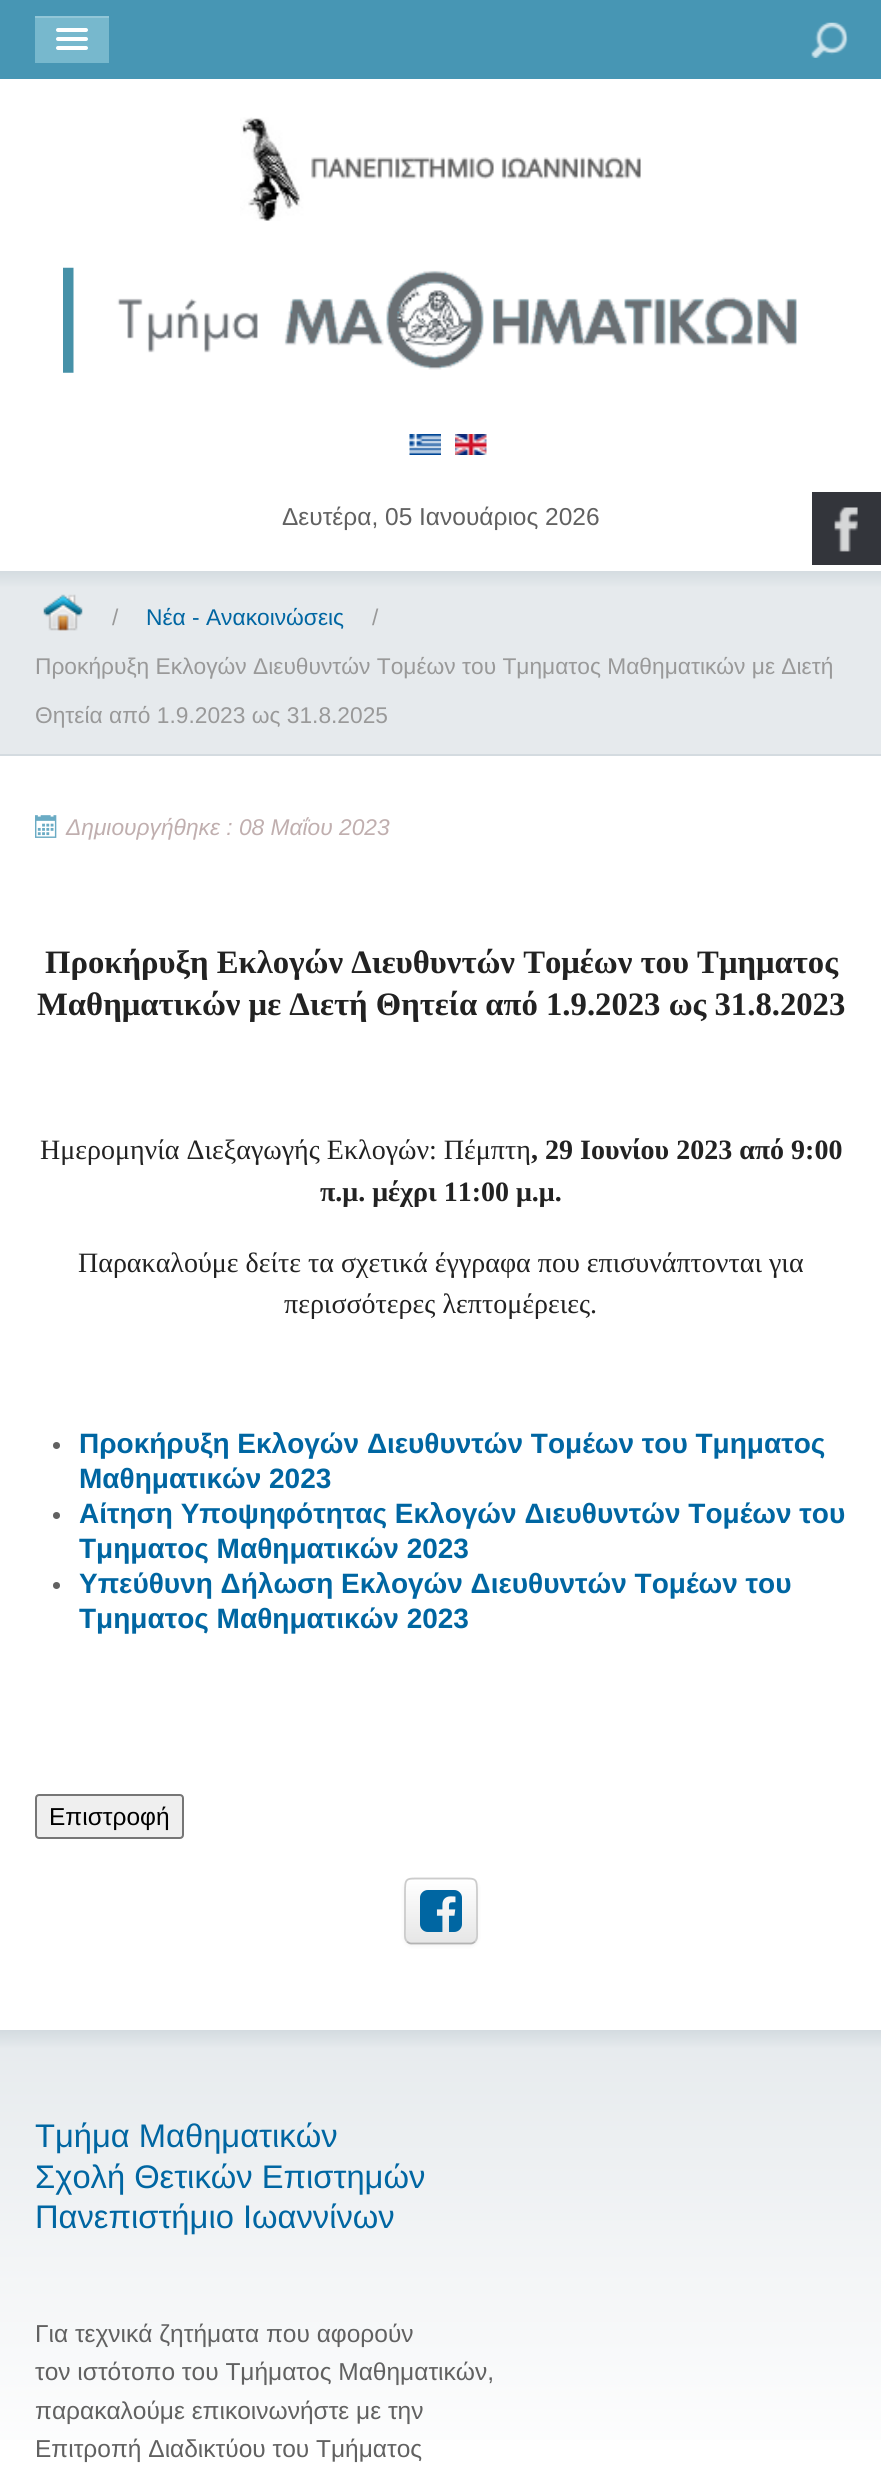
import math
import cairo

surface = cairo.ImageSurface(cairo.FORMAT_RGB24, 881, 2468)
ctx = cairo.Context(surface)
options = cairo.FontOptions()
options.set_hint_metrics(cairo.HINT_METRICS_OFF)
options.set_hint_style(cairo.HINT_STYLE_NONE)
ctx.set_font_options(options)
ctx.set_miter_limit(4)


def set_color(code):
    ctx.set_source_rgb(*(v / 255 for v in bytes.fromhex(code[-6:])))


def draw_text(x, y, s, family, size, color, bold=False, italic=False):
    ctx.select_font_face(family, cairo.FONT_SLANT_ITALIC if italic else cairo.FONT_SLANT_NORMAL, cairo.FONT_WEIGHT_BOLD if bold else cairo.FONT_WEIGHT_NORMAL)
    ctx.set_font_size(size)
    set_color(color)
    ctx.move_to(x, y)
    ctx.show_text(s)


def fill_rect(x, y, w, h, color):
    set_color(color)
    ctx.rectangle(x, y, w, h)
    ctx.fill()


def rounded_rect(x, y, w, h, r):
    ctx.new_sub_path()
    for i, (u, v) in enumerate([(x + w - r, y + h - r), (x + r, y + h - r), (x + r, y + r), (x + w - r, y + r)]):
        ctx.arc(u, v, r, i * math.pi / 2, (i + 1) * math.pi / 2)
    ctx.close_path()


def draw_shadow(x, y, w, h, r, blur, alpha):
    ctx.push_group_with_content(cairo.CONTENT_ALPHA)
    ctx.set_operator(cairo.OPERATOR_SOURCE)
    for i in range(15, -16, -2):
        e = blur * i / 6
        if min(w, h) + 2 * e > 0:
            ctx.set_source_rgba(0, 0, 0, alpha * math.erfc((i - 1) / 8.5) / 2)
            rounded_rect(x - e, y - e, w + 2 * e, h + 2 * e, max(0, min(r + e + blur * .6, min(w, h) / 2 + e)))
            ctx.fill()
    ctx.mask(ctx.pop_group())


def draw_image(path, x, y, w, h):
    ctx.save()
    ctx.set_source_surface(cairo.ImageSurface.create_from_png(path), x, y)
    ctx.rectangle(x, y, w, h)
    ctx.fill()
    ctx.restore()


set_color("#ffffff")
ctx.paint()
fill_rect(0, 0, 881, 79, "#4796b4")
fill_rect(35, 18, 74, 45, "#77b8cd")
fill_rect(35, 16, 74, 2, "#92c6d7")
set_color("#ffffff")
rounded_rect(56, 28, 32, 4, 2)
ctx.fill()
rounded_rect(56, 37, 32, 4, 2)
ctx.fill()
rounded_rect(56, 46, 32, 4, 2)
ctx.fill()
draw_image("assets/img1.png", 811, 22, 37, 36)
draw_image("assets/img2.png", 240, 117, 401, 104)
draw_image("assets/img3.png", 63, 267, 734, 106)
draw_image("assets/img4.png", 409, 434, 32, 21)
draw_image("assets/img5.png", 455, 434, 32, 21)
draw_text(282, 525, "Δευτέρα, 05 Ιανουάριος 2026", "Liberation Sans", 24.5, "#616161")
gradient = cairo.LinearGradient(441, 570, 441, 588)
gradient.add_color_stop_rgba(0, 0.831, 0.859, 0.878, 1)
gradient.add_color_stop_rgba(1, 0.902, 0.918, 0.929, 1)
ctx.set_source(gradient)
ctx.rectangle(0, 571, 881, 17)
ctx.fill()
fill_rect(0, 588, 881, 166, "#e6eaed")
fill_rect(0, 754, 881, 2, "#d4dbe0")
draw_image("assets/img6.png", 43, 594, 40, 37)
draw_text(112, 625, "/", "Liberation Sans", 22.75, "#999999")
draw_text(146, 625, "Νέα - Ανακοινώσεις", "Liberation Sans", 22.75, "#0066a2")
draw_text(372, 625, "/", "Liberation Sans", 22.75, "#999999")
draw_text(35, 674, "Προκήρυξη Εκλογών Διευθυντών Τομέων του Τμηματος Μαθηματικών με Διετή", "Liberation Sans", 22.75, "#999999")
draw_text(35, 723, "Θητεία από 1.9.2023 ως 31.8.2025", "Liberation Sans", 22.75, "#999999")
draw_image("assets/img7.png", 35, 815, 22, 23)
draw_text(66, 835, "Δημιουργήθηκε : 08 Μαΐου 2023", "Liberation Sans", 22.75, "#c0afaf", italic=True)
draw_text(45, 973, "Προκήρυξη Εκλογών Διευθυντών Τομέων του Τμηματος", "Liberation Serif", 32.7, "#222222", bold=True)
draw_text(37, 1015, "Μαθηματικών με Διετή Θητεία από 1.9.2023 ως 31.8.2023", "Liberation Serif", 32.7, "#222222", bold=True)
draw_text(40, 1159, "Ημερομηνία Διεξαγωγής Εκλογών: Πέμπτη", "Liberation Serif", 28, "#222222")
draw_text(531, 1159, ", 29 Ιουνίου 2023 από 9:00", "Liberation Serif", 28, "#222222", bold=True)
draw_text(320, 1201, "π.μ. μέχρι 11:00 μ.μ.", "Liberation Serif", 28, "#222222", bold=True)
draw_text(78, 1272, "Παρακαλούμε δείτε τα σχετικά έγγραφα που επισυνάπτονται για", "Liberation Serif", 28, "#222222")
draw_text(284, 1313, "περισσότερες λεπτομέρειες.", "Liberation Serif", 28, "#222222")
set_color("#616161")
ctx.new_path()
ctx.arc(56.5, 1445.5, 3.5, 0, 2 * math.pi)
ctx.fill()
draw_text(79, 1453, "Προκήρυξη Εκλογών Διευθυντών Τομέων του Τμηματος", "Liberation Sans", 28, "#0066a2", bold=True)
draw_text(79, 1488, "Μαθηματικών 2023", "Liberation Sans", 28, "#0066a2", bold=True)
set_color("#616161")
ctx.new_path()
ctx.arc(56.5, 1515.5, 3.5, 0, 2 * math.pi)
ctx.fill()
draw_text(79, 1523, "Αίτηση Υποψηφότητας Εκλογών Διευθυντών Τομέων του", "Liberation Sans", 28, "#0066a2", bold=True)
draw_text(79, 1558, "Τμηματος Μαθηματικών 2023", "Liberation Sans", 28, "#0066a2", bold=True)
set_color("#616161")
ctx.new_path()
ctx.arc(56.5, 1585.5, 3.5, 0, 2 * math.pi)
ctx.fill()
draw_text(79, 1593, "Υπεύθυνη Δήλωση Εκλογών Διευθυντών Τομέων του", "Liberation Sans", 28, "#0066a2", bold=True)
draw_text(79, 1628, "Τμηματος Μαθηματικών 2023", "Liberation Sans", 28, "#0066a2", bold=True)
set_color("#efefef")
rounded_rect(36, 1795, 147, 43, 3)
ctx.fill_preserve()
set_color("#767676")
ctx.stroke()
draw_text(49, 1825, "Επιστροφή", "Liberation Sans", 24.5, "#000000")
set_color("#000000")
draw_shadow(404, 1880, 74, 66, 7, 2, 0.05)
ctx.save()
rounded_rect(404, 1878, 74, 66, 7)
ctx.clip()
gradient = cairo.LinearGradient(441, 1880, 441, 1943)
gradient.add_color_stop_rgba(0, 1, 1, 1, 1)
gradient.add_color_stop_rgba(1, 0.902, 0.902, 0.902, 1)
ctx.set_source(gradient)
ctx.rectangle(404, 1880, 74, 63)
ctx.fill()
ctx.restore()
ctx.new_path()
ctx.move_to(475, 1941.5)
ctx.curve_to(474, 1942.5, 472.5, 1943.5, 471, 1943.5)
ctx.line_to(411, 1943.5)
ctx.curve_to(409.5, 1943.5, 408, 1942.5, 407, 1941.5)
set_color("#b3b3b3")
ctx.set_line_width(1.8)
ctx.stroke()
ctx.new_path()
ctx.move_to(407, 1941.5)
ctx.curve_to(404, 1938.5, 405, 1932, 405, 1928.5)
ctx.line_to(405, 1893.5)
ctx.curve_to(405, 1877.5, 405.5, 1878.5, 421, 1878.5)
ctx.line_to(461, 1878.5)
ctx.curve_to(476.5, 1878.5, 477, 1877.5, 477, 1893.5)
ctx.line_to(477, 1928.5)
ctx.curve_to(477, 1932, 478, 1938.5, 475, 1941.5)
set_color("#cccccc")
ctx.stroke()
draw_image("assets/img8.png", 420, 1890, 42, 42)
gradient = cairo.LinearGradient(441, 2030, 441, 2048)
gradient.add_color_stop_rgba(0, 0.831, 0.859, 0.878, 1)
gradient.add_color_stop_rgba(1, 0.902, 0.918, 0.929, 1)
ctx.set_source(gradient)
ctx.rectangle(0, 2030, 881, 18)
ctx.fill()
gradient = cairo.LinearGradient(441, 2030, 441, 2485)
gradient.add_color_stop_rgba(0, 0.902, 0.918, 0.929, 1)
gradient.add_color_stop_rgba(1, 1, 1, 1, 1)
ctx.set_source(gradient)
ctx.rectangle(0, 2048, 881, 392)
ctx.fill()
draw_text(35, 2147, "Τμήμα Μαθηματικών", "Liberation Sans", 32.7, "#0066a2")
draw_text(35, 2188, "Σχολή Θετικών Επιστημών", "Liberation Sans", 32.7, "#0066a2")
draw_text(35, 2228, "Πανεπιστήμιο Ιωαννίνων", "Liberation Sans", 32.7, "#0066a2")
draw_text(35, 2342, "Για τεχνικά ζητήματα που αφορούν", "Liberation Sans", 24.5, "#616161")
draw_text(35, 2380, "τον ιστότοπο του Τμήματος Μαθηματικών,", "Liberation Sans", 24.5, "#616161")
draw_text(35, 2419, "παρακαλούμε επικοινωνήστε με την", "Liberation Sans", 24.5, "#616161")
draw_text(35, 2457, "Επιτροπή Διαδικτύου του Τμήματος", "Liberation Sans", 24.5, "#616161")
fill_rect(812, 492, 69, 73, "#33353b")
draw_image("assets/img9.png", 834, 507, 24, 45)
surface.write_to_png("output.png")
